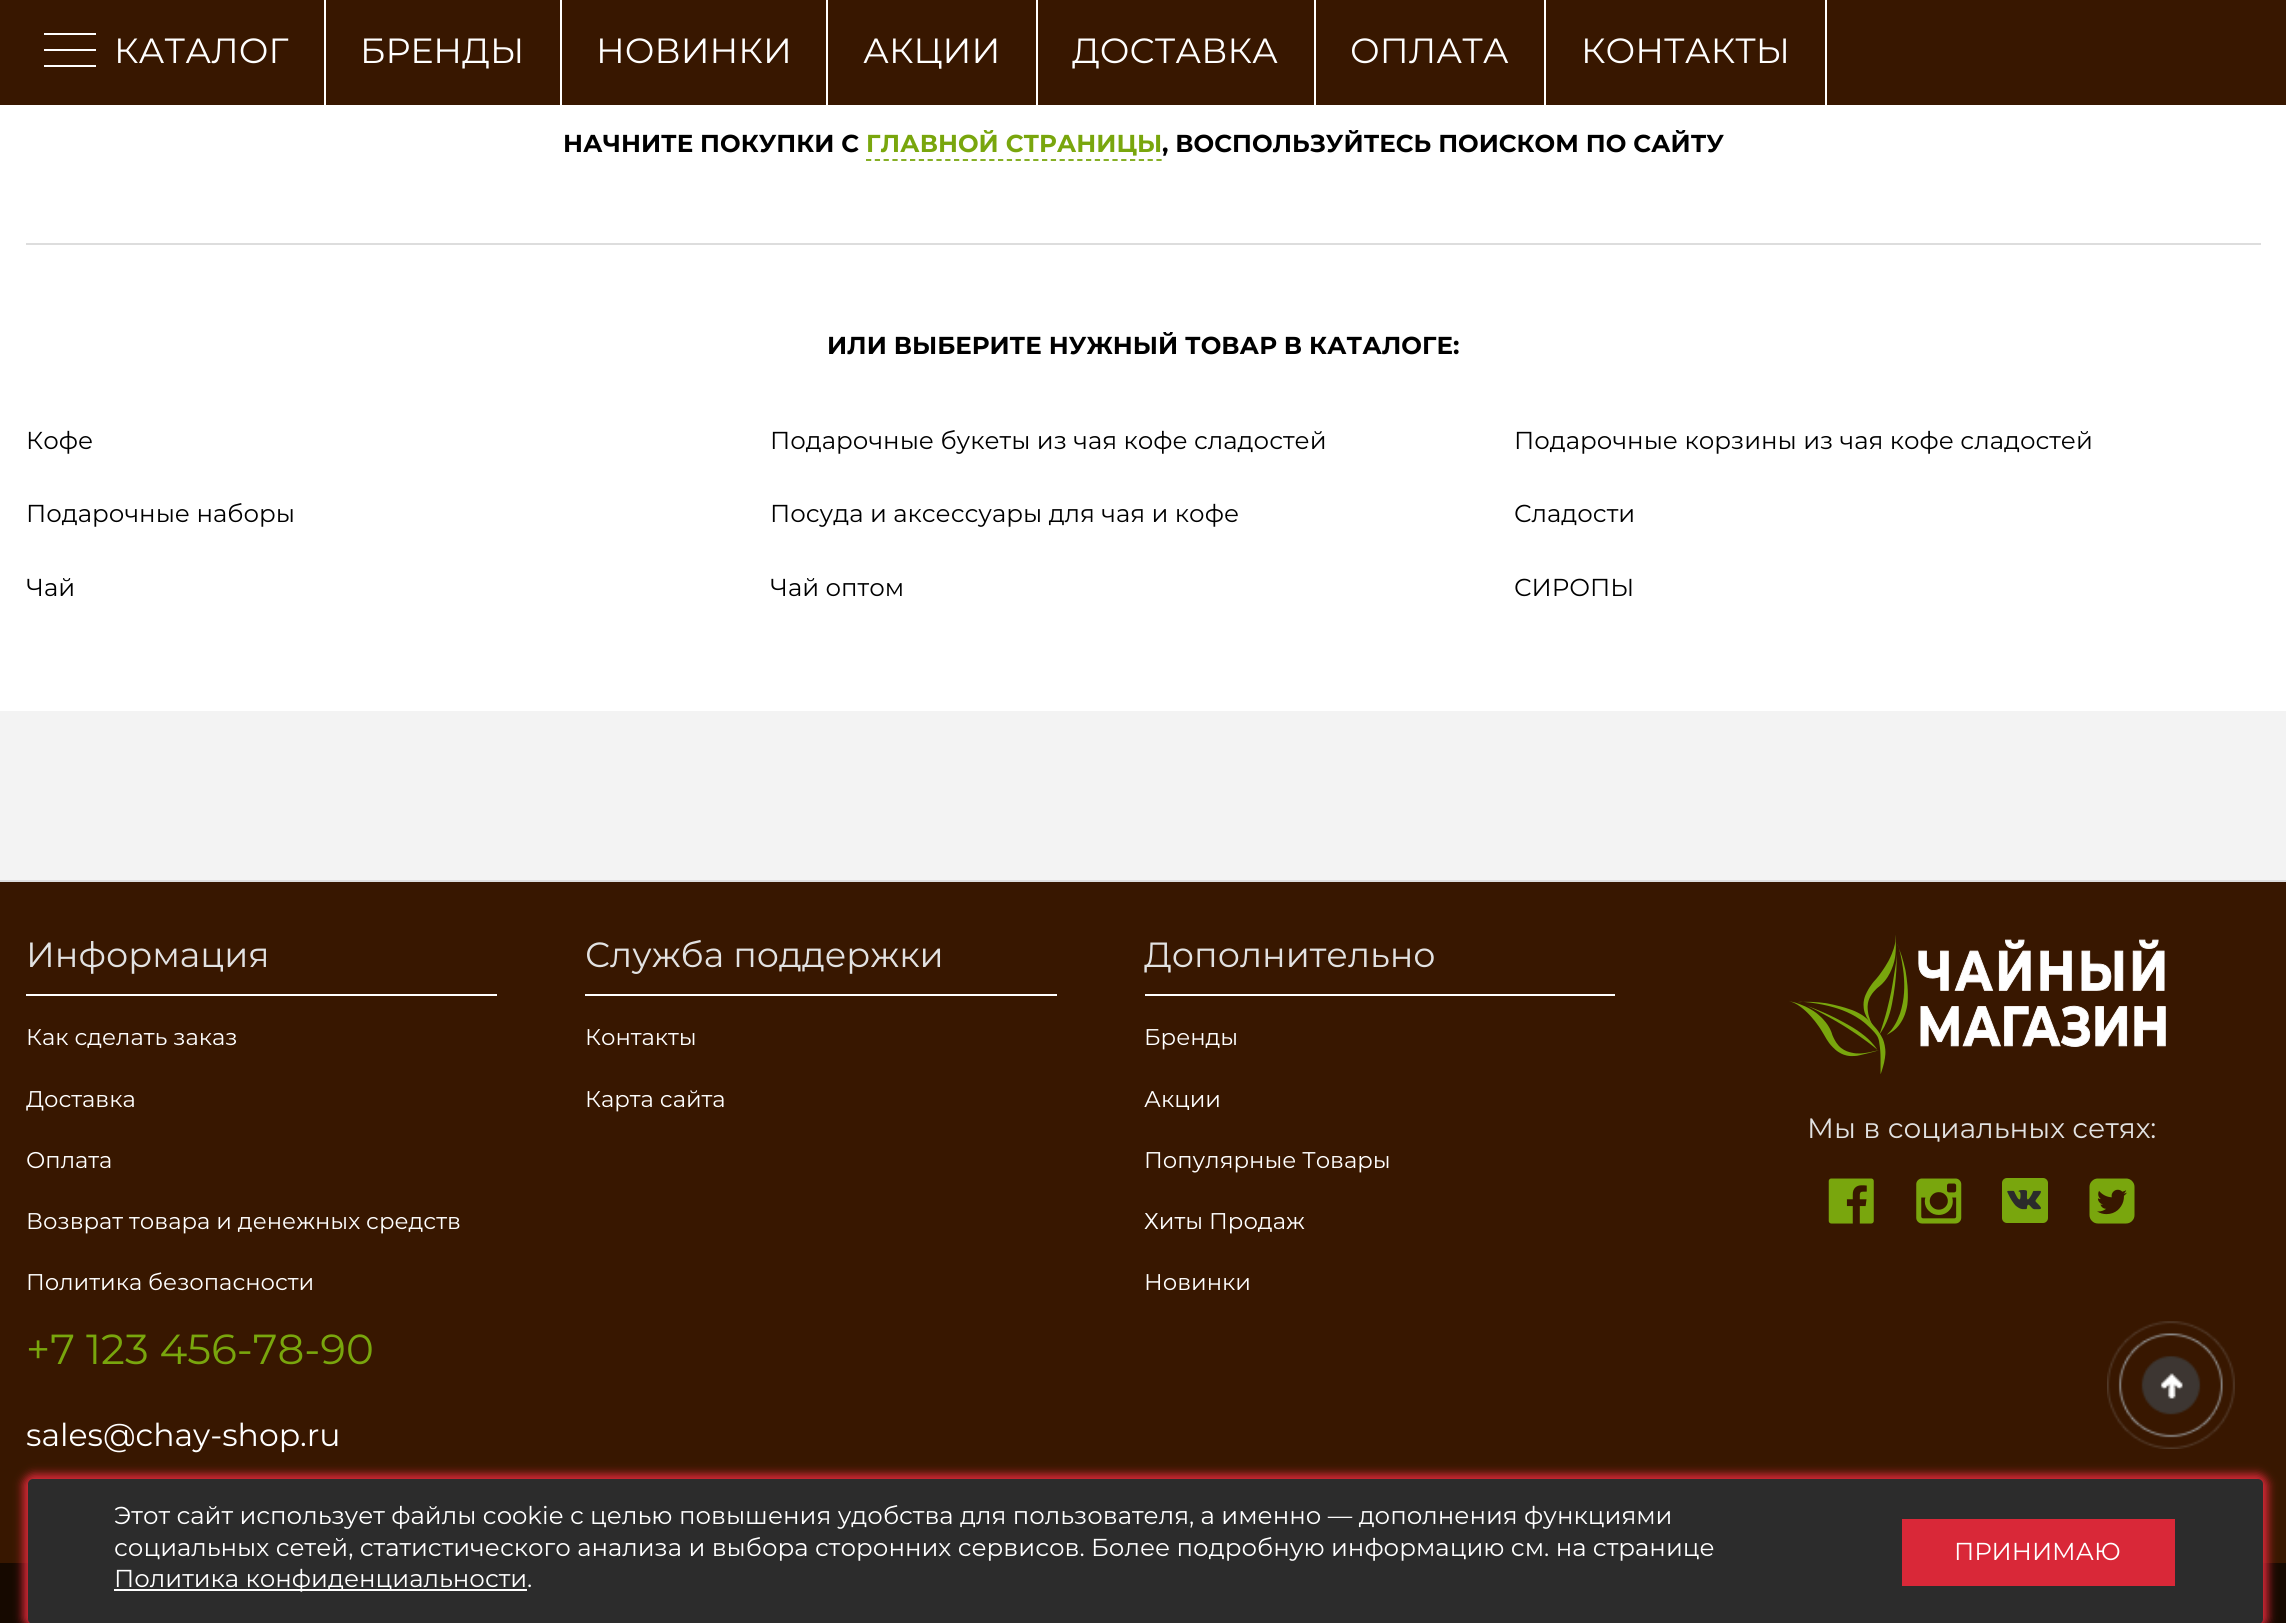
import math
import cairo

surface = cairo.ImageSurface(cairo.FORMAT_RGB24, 2286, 1623)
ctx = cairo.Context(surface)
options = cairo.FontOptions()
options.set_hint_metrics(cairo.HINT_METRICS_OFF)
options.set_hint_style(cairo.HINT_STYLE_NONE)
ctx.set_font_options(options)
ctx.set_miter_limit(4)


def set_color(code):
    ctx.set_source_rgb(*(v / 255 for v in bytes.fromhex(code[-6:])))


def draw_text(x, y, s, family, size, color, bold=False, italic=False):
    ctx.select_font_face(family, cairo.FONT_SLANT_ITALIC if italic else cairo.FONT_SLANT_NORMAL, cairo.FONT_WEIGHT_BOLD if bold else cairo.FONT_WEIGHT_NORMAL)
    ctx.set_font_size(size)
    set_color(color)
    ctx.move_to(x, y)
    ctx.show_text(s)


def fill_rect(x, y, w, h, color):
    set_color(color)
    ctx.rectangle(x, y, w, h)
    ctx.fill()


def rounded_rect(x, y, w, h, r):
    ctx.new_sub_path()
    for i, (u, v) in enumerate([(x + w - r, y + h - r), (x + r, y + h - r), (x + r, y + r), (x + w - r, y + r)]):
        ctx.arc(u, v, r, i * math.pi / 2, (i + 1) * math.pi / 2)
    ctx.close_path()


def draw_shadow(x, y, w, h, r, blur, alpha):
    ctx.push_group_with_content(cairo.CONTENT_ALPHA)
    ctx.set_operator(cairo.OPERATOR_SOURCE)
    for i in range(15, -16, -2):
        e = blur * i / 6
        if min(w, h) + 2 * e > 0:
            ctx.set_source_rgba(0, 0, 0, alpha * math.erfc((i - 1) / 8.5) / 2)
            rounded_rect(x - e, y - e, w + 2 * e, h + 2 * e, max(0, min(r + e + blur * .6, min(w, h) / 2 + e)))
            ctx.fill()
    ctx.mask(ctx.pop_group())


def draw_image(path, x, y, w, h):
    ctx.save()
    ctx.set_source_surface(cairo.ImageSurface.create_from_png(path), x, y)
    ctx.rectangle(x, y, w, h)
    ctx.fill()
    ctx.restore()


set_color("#ffffff")
ctx.paint()
fill_rect(0, 0, 2286, 105, "#381700")
fill_rect(324, 0, 2, 105, "#ffffff")
fill_rect(44, 49, 52, 2, "#ffffff")
fill_rect(44, 33, 52, 2, "#ffffff")
fill_rect(44, 65, 52, 2, "#ffffff")
draw_text(114, 63, "КАТАЛОГ", "Montserrat", 35, "#ffffff")
fill_rect(560, 0, 2, 105, "#ffffff")
draw_text(360, 63, "БРЕНДЫ", "Montserrat", 35, "#ffffff")
fill_rect(826, 0, 2, 105, "#ffffff")
draw_text(596, 63, "НОВИНКИ", "Montserrat", 35, "#ffffff")
fill_rect(1036, 0, 2, 105, "#ffffff")
draw_text(863, 63, "АКЦИИ", "Montserrat", 35, "#ffffff")
fill_rect(1314, 0, 2, 105, "#ffffff")
draw_text(1072, 63, "ДОСТАВКА", "Montserrat", 35, "#ffffff")
fill_rect(1544, 0, 2, 105, "#ffffff")
draw_text(1350, 63, "ОПЛАТА", "Montserrat", 35, "#ffffff")
fill_rect(1825, 0, 2, 105, "#ffffff")
draw_text(1581, 63, "КОНТАКТЫ", "Montserrat", 35, "#ffffff")
draw_text(563, 152, "НАЧНИТЕ ПОКУПКИ С", "Montserrat", 24.5, "#000000", bold=True)
draw_text(866, 152, "ГЛАВНОЙ СТРАНИЦЫ", "Montserrat", 24.5, "#79a60d", bold=True)
ctx.new_path()
ctx.move_to(866, 160)
ctx.line_to(1162, 160)
ctx.set_line_width(1.8)
ctx.set_dash([5.25, 3.55])
ctx.stroke()
draw_text(1162, 152, ", ВОСПОЛЬЗУЙТЕСЬ ПОИСКОМ ПО САЙТУ", "Montserrat", 24.5, "#000000", bold=True)
fill_rect(26, 243, 2235, 2, "#dddddd")
draw_text(827, 354, "ИЛИ ВЫБЕРИТЕ НУЖНЫЙ ТОВАР В КАТАЛОГЕ:", "Montserrat", 24.5, "#000000", bold=True)
draw_text(26, 449, "Кофе", "Montserrat", 24.5, "#000000")
draw_text(770, 449, "Подарочные букеты из чая кофе сладостей", "Montserrat", 24.5, "#000000")
draw_text(1514, 449, "Подарочные корзины из чая кофе сладостей", "Montserrat", 24.5, "#000000")
draw_text(26, 522, "Подарочные наборы", "Montserrat", 24.5, "#000000")
draw_text(770, 522, "Посуда и аксессуары для чая и кофе", "Montserrat", 24.5, "#000000")
draw_text(1514, 522, "Сладости", "Montserrat", 24.5, "#000000")
draw_text(26, 596, "Чай", "Montserrat", 24.5, "#000000")
draw_text(770, 596, "Чай оптом", "Montserrat", 24.5, "#000000")
draw_text(1514, 596, "СИРОПЫ", "Montserrat", 24.5, "#000000")
fill_rect(0, 711, 2286, 169, "#f3f3f3")
fill_rect(0, 882, 2286, 681, "#381700")
fill_rect(0, 880, 2286, 2, "#dddddd")
fill_rect(26, 994, 471, 2, "#ffffff")
draw_text(26, 967, "Информация", "Montserrat", 35, "#e2e2e2")
draw_text(26, 1045, "Как сделать заказ", "Montserrat", 22.75, "#ffffff")
draw_text(26, 1107, "Доставка", "Montserrat", 22.75, "#ffffff")
draw_text(26, 1168, "Оплата", "Montserrat", 22.75, "#ffffff")
draw_text(26, 1229, "Возврат товара и денежных средств", "Montserrat", 22.75, "#ffffff")
draw_text(26, 1290, "Политика безопасности", "Montserrat", 22.75, "#ffffff")
fill_rect(585, 994, 472, 2, "#ffffff")
draw_text(585, 967, "Служба поддержки", "Montserrat", 35, "#e2e2e2")
draw_text(585, 1045, "Контакты", "Montserrat", 22.75, "#ffffff")
draw_text(585, 1107, "Карта сайта", "Montserrat", 22.75, "#ffffff")
fill_rect(1145, 994, 470, 2, "#ffffff")
draw_text(1144, 967, "Дополнительно", "Montserrat", 35, "#e2e2e2")
draw_text(1144, 1045, "Бренды", "Montserrat", 22.75, "#ffffff")
draw_text(1144, 1107, "Акции", "Montserrat", 22.75, "#ffffff")
draw_text(1144, 1168, "Популярные Товары", "Montserrat", 22.75, "#ffffff")
draw_text(1144, 1229, "Хиты Продаж", "Montserrat", 22.75, "#ffffff")
draw_text(1144, 1290, "Новинки", "Montserrat", 22.75, "#ffffff")
draw_image("assets/img1.png", 1789, 935, 377, 139)
draw_text(1807, 1138, "Мы в социальных сетях:", "Montserrat", 28, "#e2e2e2")
draw_image("assets/img2.png", 1828, 1178, 46, 46)
draw_image("assets/img3.png", 1916, 1178, 46, 46)
set_color("#79a60d")
rounded_rect(2002, 1178, 46, 45, 5)
ctx.fill()
draw_image("assets/img4.png", 2007, 1190, 34, 20)
draw_image("assets/img5.png", 2089, 1178, 46, 46)
draw_text(26, 1364, "+7 123 456-78-90", "Montserrat", 42, "#79a60d")
draw_text(26, 1446, "sales@chay-shop.ru", "Montserrat", 31.5, "#ffffff")
fill_rect(0, 1563, 2286, 60, "#160900")
draw_image("assets/img6.png", 2107, 1321, 128, 128)
set_color("#d92838")
draw_shadow(23, 1474, 2245, 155, 11, 4.5, 1)
set_color("#2c2c2c")
rounded_rect(28, 1479, 2235, 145, 5)
ctx.fill()
draw_text(114, 1524, "Этот сайт использует файлы cookie с целью повышения удобства для пользователя, а именно — дополнения функциями", "Montserrat", 24.5, "#ffffff")
draw_text(114, 1556, "социальных сетей, статистического анализа и выбора сторонних сервисов. Более подробную информацию см. на странице", "Montserrat", 24.5, "#ffffff")
fill_rect(114, 1589, 413, 2, "#ffffff")
draw_text(114, 1587, "Политика конфиденциальности.", "Montserrat", 24.5, "#ffffff")
fill_rect(1902, 1519, 273, 67, "#d92838")
draw_text(1954, 1560, "ПРИНИМАЮ", "Montserrat", 24.5, "#ffffff")
surface.write_to_png("output.png")
